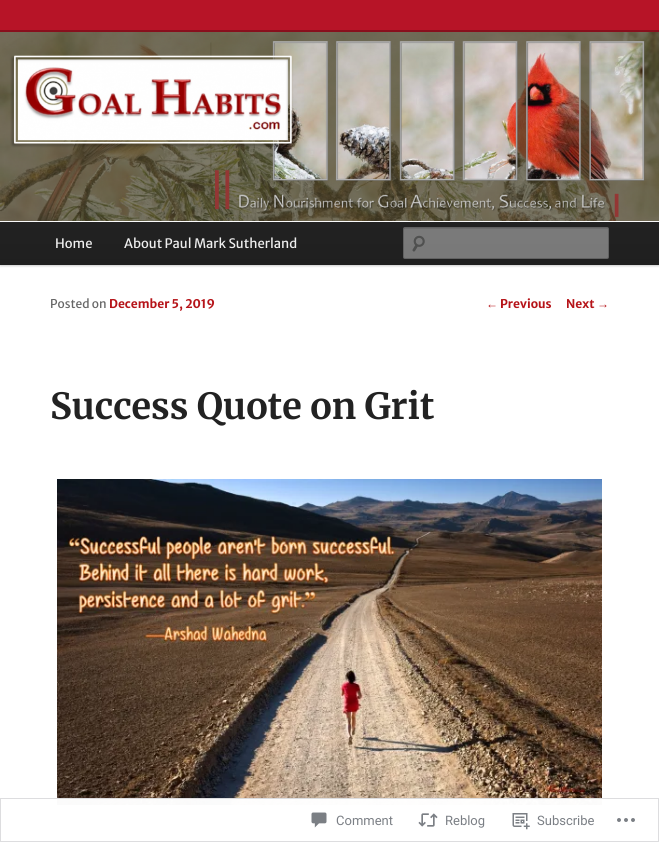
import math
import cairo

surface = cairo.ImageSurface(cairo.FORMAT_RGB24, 659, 842)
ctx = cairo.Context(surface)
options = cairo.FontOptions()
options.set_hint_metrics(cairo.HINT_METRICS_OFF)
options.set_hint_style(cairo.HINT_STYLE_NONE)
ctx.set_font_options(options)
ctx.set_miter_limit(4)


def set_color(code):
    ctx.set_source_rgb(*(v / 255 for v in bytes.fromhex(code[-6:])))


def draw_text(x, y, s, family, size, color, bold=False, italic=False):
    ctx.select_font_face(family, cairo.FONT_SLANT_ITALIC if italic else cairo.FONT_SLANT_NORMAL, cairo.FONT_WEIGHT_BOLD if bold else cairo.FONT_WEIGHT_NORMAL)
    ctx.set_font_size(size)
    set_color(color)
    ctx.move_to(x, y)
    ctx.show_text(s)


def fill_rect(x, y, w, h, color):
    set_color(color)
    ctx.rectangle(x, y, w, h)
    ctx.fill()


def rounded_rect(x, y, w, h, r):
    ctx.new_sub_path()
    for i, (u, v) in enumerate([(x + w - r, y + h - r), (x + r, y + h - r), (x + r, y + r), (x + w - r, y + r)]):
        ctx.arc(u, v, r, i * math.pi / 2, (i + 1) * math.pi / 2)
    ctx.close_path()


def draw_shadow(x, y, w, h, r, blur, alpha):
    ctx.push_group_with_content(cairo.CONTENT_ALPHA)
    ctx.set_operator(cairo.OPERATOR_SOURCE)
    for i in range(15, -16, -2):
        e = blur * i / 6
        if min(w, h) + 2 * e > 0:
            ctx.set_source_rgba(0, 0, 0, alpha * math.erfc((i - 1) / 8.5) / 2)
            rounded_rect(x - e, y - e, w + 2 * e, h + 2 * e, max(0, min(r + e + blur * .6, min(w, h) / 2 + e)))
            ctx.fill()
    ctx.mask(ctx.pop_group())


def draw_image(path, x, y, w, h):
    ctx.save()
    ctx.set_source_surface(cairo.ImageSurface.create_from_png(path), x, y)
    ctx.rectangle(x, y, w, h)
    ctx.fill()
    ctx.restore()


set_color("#b71427")
ctx.paint()
fill_rect(0, 221, 659, 621, "#ffffff")
fill_rect(0, 30, 659, 2, "#890f1d")
set_color("#000000")
draw_shadow(0, 223, 659, 43, 0, 1, 0.2)
draw_image("assets/img1.png", 0, 32, 659, 189)
gradient = cairo.LinearGradient(330, 222, 330, 265)
gradient.add_color_stop_rgba(0, 0.133, 0.133, 0.133, 1)
gradient.add_color_stop_rgba(1, 0.122, 0.122, 0.122, 1)
ctx.set_source(gradient)
ctx.rectangle(0, 222, 659, 43)
ctx.fill()
draw_text(55, 248, "Home", "Merriweather Sans", 13, "#eeeeee")
draw_text(124, 248, "About Paul Mark Sutherland", "Merriweather Sans", 13, "#eeeeee")
ctx.set_source_rgba(1, 1, 1, 0.4)
rounded_rect(403, 227, 206, 32, 2)
ctx.fill()
draw_image("assets/img2.png", 412, 235, 13, 17)
set_color("#6e6e6e")
ctx.new_path()
ctx.move_to(405, 229)
ctx.line_to(608, 229)
ctx.line_to(608, 230)
ctx.curve_to(608, 229, 608, 228, 607, 228)
ctx.line_to(405, 228)
ctx.line_to(404, 228)
ctx.line_to(404, 230)
ctx.curve_to(404, 229, 404, 229, 405, 229)
ctx.close_path()
ctx.fill()
rounded_rect(403.5, 227.5, 205, 31, 1.5)
ctx.set_source_rgba(0, 0, 0, 0.2)
ctx.set_line_width(1)
ctx.stroke()
draw_text(50, 308, "Posted on", "Merriweather Sans", 12, "#666666")
draw_text(109, 308, "December 5, 2019", "Merriweather Sans", 12, "#b61419", bold=True)
draw_text(50, 419, "Success Quote on Grit", "Merriweather Light", 36, "#222222")
draw_image("assets/img3.png", 57, 479, 545, 326)
draw_text(486, 308, "←", "Liberation Sans", 12, "#b61419")
draw_text(500, 308, "Previous", "Merriweather Sans", 12, "#b61419", bold=True)
draw_text(566, 308, "Next", "Merriweather Sans", 12, "#b61419", bold=True)
draw_text(597, 308, "→", "Liberation Sans", 12, "#b61419")
ctx.set_source_rgba(1, 1, 1, 0.98)
ctx.rectangle(57, 798, 545, 7)
ctx.fill()
ctx.rectangle(0.5, 798.5, 658, 43)
ctx.set_source_rgba(0.863, 0.863, 0.871, 0.98)
ctx.stroke()
draw_image("assets/img4.png", 311, 812, 16, 16)
draw_text(336, 825, "Comment", "Roboto", 13, "#7b7f85")
draw_image("assets/img5.png", 418, 813, 20, 14)
draw_text(445, 825, "Reblog", "Roboto", 13, "#7b7f85")
draw_image("assets/img6.png", 512, 813, 18, 17)
draw_text(537, 825, "Subscribe", "Roboto", 13, "#7b7f85")
draw_image("assets/img7.png", 617, 818, 18, 4)
surface.write_to_png("output.png")
